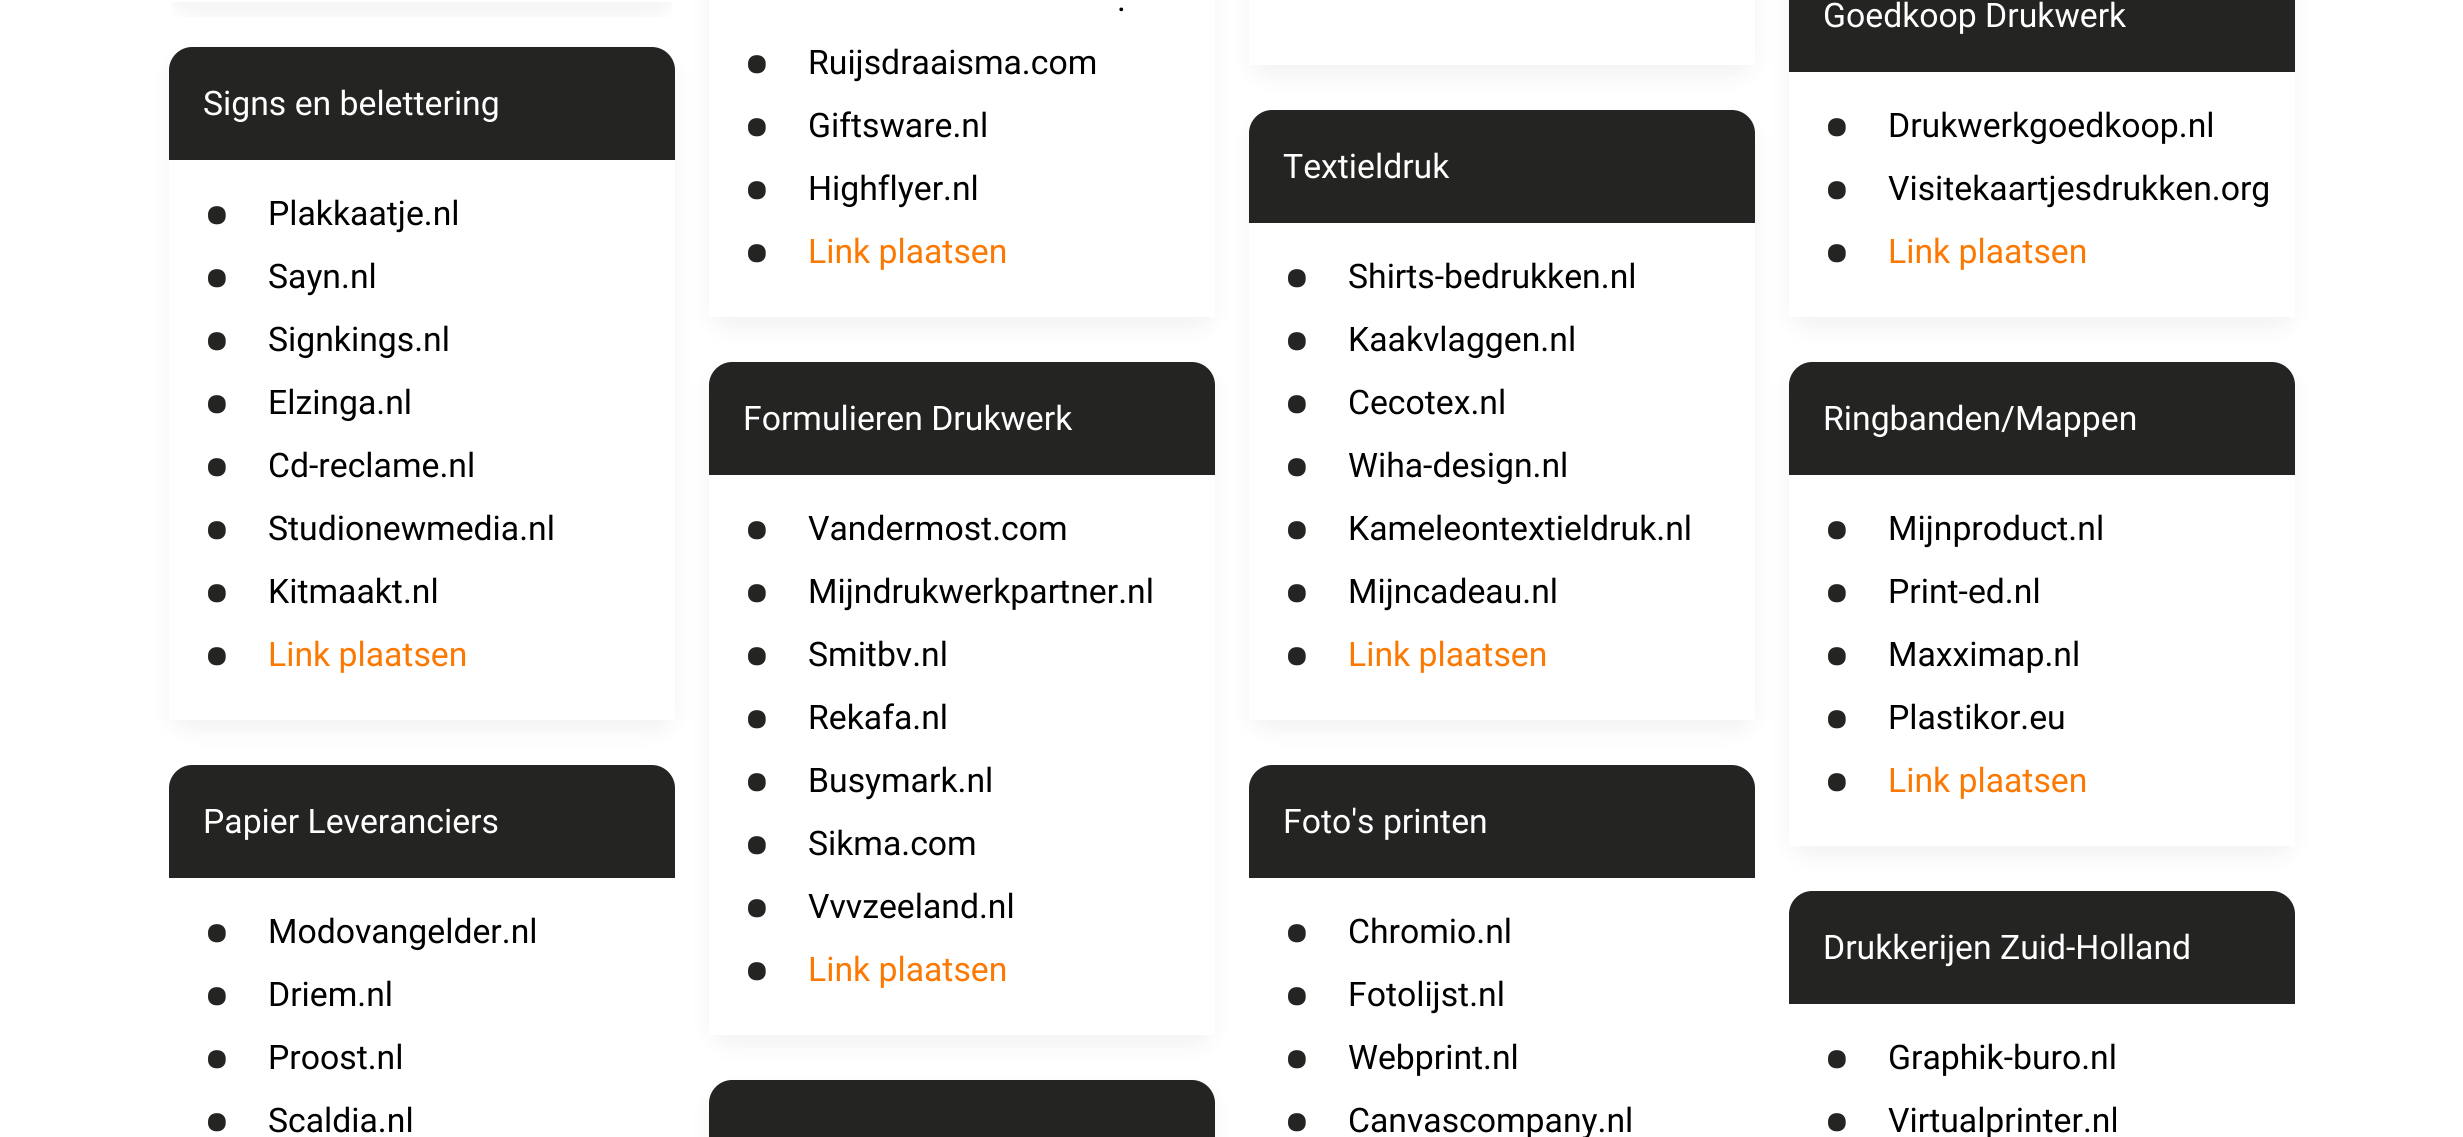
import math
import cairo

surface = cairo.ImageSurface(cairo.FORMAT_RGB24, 2463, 1137)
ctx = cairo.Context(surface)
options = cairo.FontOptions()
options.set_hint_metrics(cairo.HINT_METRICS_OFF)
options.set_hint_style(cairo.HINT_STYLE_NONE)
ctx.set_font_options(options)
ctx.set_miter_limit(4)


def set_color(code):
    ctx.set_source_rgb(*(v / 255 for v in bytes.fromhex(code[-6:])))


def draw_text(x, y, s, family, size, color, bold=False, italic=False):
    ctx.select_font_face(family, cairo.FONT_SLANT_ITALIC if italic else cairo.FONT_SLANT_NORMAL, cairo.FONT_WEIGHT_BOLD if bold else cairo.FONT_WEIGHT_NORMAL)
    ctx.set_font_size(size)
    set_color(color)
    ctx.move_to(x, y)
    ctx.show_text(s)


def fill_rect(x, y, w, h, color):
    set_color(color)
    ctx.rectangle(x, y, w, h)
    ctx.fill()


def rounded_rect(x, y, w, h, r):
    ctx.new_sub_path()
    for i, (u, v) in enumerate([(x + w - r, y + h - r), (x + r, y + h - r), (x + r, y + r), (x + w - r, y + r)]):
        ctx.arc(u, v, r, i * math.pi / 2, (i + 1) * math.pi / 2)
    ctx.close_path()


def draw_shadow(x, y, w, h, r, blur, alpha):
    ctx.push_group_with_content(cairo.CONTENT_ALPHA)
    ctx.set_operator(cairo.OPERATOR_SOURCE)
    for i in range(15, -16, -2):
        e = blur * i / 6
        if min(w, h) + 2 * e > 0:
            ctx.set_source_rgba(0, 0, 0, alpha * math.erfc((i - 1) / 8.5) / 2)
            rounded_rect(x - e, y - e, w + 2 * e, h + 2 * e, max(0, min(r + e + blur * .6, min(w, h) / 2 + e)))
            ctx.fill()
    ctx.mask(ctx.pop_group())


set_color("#ffffff")
ctx.paint()
ctx.save()
ctx.rectangle(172, 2, 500, 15)
ctx.clip()
set_color("#000000")
draw_shadow(169, -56, 506, 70, 23, 11, 0.05)
ctx.restore()
ctx.save()
ctx.set_fill_rule(cairo.FILL_RULE_EVEN_ODD)
ctx.new_path()
ctx.move_to(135, 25)
ctx.line_to(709, 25)
ctx.line_to(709, 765)
ctx.line_to(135, 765)
ctx.close_path()
ctx.move_to(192, 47)
ctx.line_to(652, 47)
ctx.curve_to(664.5, 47, 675, 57.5, 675, 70)
ctx.line_to(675, 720)
ctx.line_to(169, 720)
ctx.line_to(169, 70)
ctx.curve_to(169, 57.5, 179.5, 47, 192, 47)
ctx.close_path()
ctx.clip()
set_color("#000000")
draw_shadow(169, 59, 506, 672, 23, 11, 0.05)
ctx.restore()
set_color("#242423")
ctx.new_path()
ctx.move_to(192, 47)
ctx.line_to(652, 47)
ctx.curve_to(664.5, 47, 675, 57.5, 675, 70)
ctx.line_to(675, 160)
ctx.line_to(169, 160)
ctx.line_to(169, 70)
ctx.curve_to(169, 57.5, 179.5, 47, 192, 47)
ctx.close_path()
ctx.fill()
draw_text(203, 115, "Signs en belettering", "Roboto", 33.75, "#ffffff")
draw_text(203, 243, "•", "Roboto", 76, "#242423", bold=True)
draw_text(268, 225, "Plakkaatje.nl", "Roboto", 33.75, "#000000")
draw_text(203, 306, "•", "Roboto", 76, "#242423", bold=True)
draw_text(268, 288, "Sayn.nl", "Roboto", 33.75, "#000000")
draw_text(203, 369, "•", "Roboto", 76, "#242423", bold=True)
draw_text(268, 351, "Signkings.nl", "Roboto", 33.75, "#000000")
draw_text(203, 432, "•", "Roboto", 76, "#242423", bold=True)
draw_text(268, 414, "Elzinga.nl", "Roboto", 33.75, "#000000")
draw_text(203, 495, "•", "Roboto", 76, "#242423", bold=True)
draw_text(268, 477, "Cd-reclame.nl", "Roboto", 33.75, "#000000")
draw_text(203, 558, "•", "Roboto", 76, "#242423", bold=True)
draw_text(268, 540, "Studionewmedia.nl", "Roboto", 33.75, "#000000")
draw_text(203, 621, "•", "Roboto", 76, "#242423", bold=True)
draw_text(268, 603, "Kitmaakt.nl", "Roboto", 33.75, "#000000")
draw_text(203, 684, "•", "Roboto", 76, "#242423", bold=True)
draw_text(268, 666, "Link plaatsen", "Roboto", 33.75, "#fb7902")
set_color("#242423")
ctx.new_path()
ctx.move_to(192, 765)
ctx.line_to(652, 765)
ctx.curve_to(664.5, 765, 675, 775.5, 675, 788)
ctx.line_to(675, 878)
ctx.line_to(169, 878)
ctx.line_to(169, 788)
ctx.curve_to(169, 775.5, 179.5, 765, 192, 765)
ctx.close_path()
ctx.fill()
draw_text(203, 833, "Papier Leveranciers", "Roboto", 33.75, "#ffffff")
draw_text(203, 961, "•", "Roboto", 76, "#242423", bold=True)
draw_text(268, 943, "Modovangelder.nl", "Roboto", 33.75, "#000000")
draw_text(203, 1024, "•", "Roboto", 76, "#242423", bold=True)
draw_text(268, 1006, "Driem.nl", "Roboto", 33.75, "#000000")
draw_text(203, 1087, "•", "Roboto", 76, "#242423", bold=True)
draw_text(268, 1069, "Proost.nl", "Roboto", 33.75, "#000000")
draw_text(203, 1150, "•", "Roboto", 76, "#242423", bold=True)
draw_text(268, 1132, "Scaldia.nl", "Roboto", 33.75, "#000000")
ctx.save()
ctx.set_fill_rule(cairo.FILL_RULE_EVEN_ODD)
ctx.new_path()
ctx.move_to(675, 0)
ctx.line_to(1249, 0)
ctx.line_to(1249, 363)
ctx.line_to(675, 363)
ctx.close_path()
ctx.move_to(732, -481)
ctx.line_to(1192, -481)
ctx.curve_to(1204.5, -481, 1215, -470.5, 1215, -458)
ctx.line_to(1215, 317)
ctx.line_to(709, 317)
ctx.line_to(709, -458)
ctx.curve_to(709, -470.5, 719.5, -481, 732, -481)
ctx.close_path()
ctx.clip()
set_color("#000000")
draw_shadow(709, -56, 506, 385, 23, 11, 0.05)
ctx.restore()
draw_text(1117, 11, ".", "Roboto", 33.75, "#000000")
draw_text(743, 92, "•", "Roboto", 76, "#242423", bold=True)
draw_text(808, 74, "Ruijsdraaisma.com", "Roboto", 33.75, "#000000")
draw_text(743, 155, "•", "Roboto", 76, "#242423", bold=True)
draw_text(808, 137, "Giftsware.nl", "Roboto", 33.75, "#000000")
draw_text(743, 218, "•", "Roboto", 76, "#242423", bold=True)
draw_text(808, 200, "Highflyer.nl", "Roboto", 33.75, "#000000")
draw_text(743, 281, "•", "Roboto", 76, "#242423", bold=True)
draw_text(808, 263, "Link plaatsen", "Roboto", 33.75, "#fb7902")
ctx.save()
ctx.set_fill_rule(cairo.FILL_RULE_EVEN_ODD)
ctx.new_path()
ctx.move_to(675, 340)
ctx.line_to(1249, 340)
ctx.line_to(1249, 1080)
ctx.line_to(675, 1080)
ctx.close_path()
ctx.move_to(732, 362)
ctx.line_to(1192, 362)
ctx.curve_to(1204.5, 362, 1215, 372.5, 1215, 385)
ctx.line_to(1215, 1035)
ctx.line_to(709, 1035)
ctx.line_to(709, 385)
ctx.curve_to(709, 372.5, 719.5, 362, 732, 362)
ctx.close_path()
ctx.clip()
set_color("#000000")
draw_shadow(709, 374, 506, 672, 23, 11, 0.05)
ctx.restore()
set_color("#242423")
ctx.new_path()
ctx.move_to(732, 362)
ctx.line_to(1192, 362)
ctx.curve_to(1204.5, 362, 1215, 372.5, 1215, 385)
ctx.line_to(1215, 475)
ctx.line_to(709, 475)
ctx.line_to(709, 385)
ctx.curve_to(709, 372.5, 719.5, 362, 732, 362)
ctx.close_path()
ctx.fill()
draw_text(743, 430, "Formulieren Drukwerk", "Roboto", 33.75, "#ffffff")
draw_text(743, 558, "•", "Roboto", 76, "#242423", bold=True)
draw_text(808, 540, "Vandermost.com", "Roboto", 33.75, "#000000")
draw_text(743, 621, "•", "Roboto", 76, "#242423", bold=True)
draw_text(808, 603, "Mijndrukwerkpartner.nl", "Roboto", 33.75, "#000000")
draw_text(743, 684, "•", "Roboto", 76, "#242423", bold=True)
draw_text(808, 666, "Smitbv.nl", "Roboto", 33.75, "#000000")
draw_text(743, 747, "•", "Roboto", 76, "#242423", bold=True)
draw_text(808, 729, "Rekafa.nl", "Roboto", 33.75, "#000000")
draw_text(743, 810, "•", "Roboto", 76, "#242423", bold=True)
draw_text(808, 792, "Busymark.nl", "Roboto", 33.75, "#000000")
draw_text(743, 873, "•", "Roboto", 76, "#242423", bold=True)
draw_text(808, 855, "Sikma.com", "Roboto", 33.75, "#000000")
draw_text(743, 936, "•", "Roboto", 76, "#242423", bold=True)
draw_text(808, 918, "Vvvzeeland.nl", "Roboto", 33.75, "#000000")
draw_text(743, 999, "•", "Roboto", 76, "#242423", bold=True)
draw_text(808, 981, "Link plaatsen", "Roboto", 33.75, "#fb7902")
set_color("#000000")
draw_shadow(709, 1091, 506, 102, 23, 11, 0.05)
set_color("#242423")
ctx.new_path()
ctx.move_to(732, 1080)
ctx.line_to(1192, 1080)
ctx.curve_to(1204.5, 1080, 1215, 1090.5, 1215, 1103)
ctx.line_to(1215, 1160)
ctx.line_to(709, 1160)
ctx.line_to(709, 1103)
ctx.curve_to(709, 1090.5, 719.5, 1080, 732, 1080)
ctx.close_path()
ctx.fill()
ctx.save()
ctx.set_fill_rule(cairo.FILL_RULE_EVEN_ODD)
ctx.new_path()
ctx.move_to(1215, 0)
ctx.line_to(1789, 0)
ctx.line_to(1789, 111)
ctx.line_to(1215, 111)
ctx.close_path()
ctx.move_to(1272, -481)
ctx.line_to(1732, -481)
ctx.curve_to(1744.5, -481, 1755, -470.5, 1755, -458)
ctx.line_to(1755, 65)
ctx.line_to(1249, 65)
ctx.line_to(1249, -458)
ctx.curve_to(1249, -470.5, 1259.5, -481, 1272, -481)
ctx.close_path()
ctx.clip()
set_color("#000000")
draw_shadow(1249, -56, 506, 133, 23, 11, 0.05)
ctx.restore()
ctx.save()
ctx.set_fill_rule(cairo.FILL_RULE_EVEN_ODD)
ctx.new_path()
ctx.move_to(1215, 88)
ctx.line_to(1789, 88)
ctx.line_to(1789, 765)
ctx.line_to(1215, 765)
ctx.close_path()
ctx.move_to(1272, 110)
ctx.line_to(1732, 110)
ctx.curve_to(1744.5, 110, 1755, 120.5, 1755, 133)
ctx.line_to(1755, 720)
ctx.line_to(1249, 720)
ctx.line_to(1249, 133)
ctx.curve_to(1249, 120.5, 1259.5, 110, 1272, 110)
ctx.close_path()
ctx.clip()
set_color("#000000")
draw_shadow(1249, 122, 506, 609, 23, 11, 0.05)
ctx.restore()
ctx.new_path()
ctx.move_to(1272, 110)
ctx.line_to(1732, 110)
ctx.curve_to(1744.5, 110, 1755, 120.5, 1755, 133)
ctx.line_to(1755, 223)
ctx.line_to(1249, 223)
ctx.line_to(1249, 133)
ctx.curve_to(1249, 120.5, 1259.5, 110, 1272, 110)
ctx.close_path()
ctx.fill()
draw_text(1283, 178, "Textieldruk", "Roboto", 33.75, "#ffffff")
draw_text(1283, 306, "•", "Roboto", 76, "#242423", bold=True)
draw_text(1348, 288, "Shirts-bedrukken.nl", "Roboto", 33.75, "#000000")
draw_text(1283, 369, "•", "Roboto", 76, "#242423", bold=True)
draw_text(1348, 351, "Kaakvlaggen.nl", "Roboto", 33.75, "#000000")
draw_text(1283, 432, "•", "Roboto", 76, "#242423", bold=True)
draw_text(1348, 414, "Cecotex.nl", "Roboto", 33.75, "#000000")
draw_text(1283, 495, "•", "Roboto", 76, "#242423", bold=True)
draw_text(1348, 477, "Wiha-design.nl", "Roboto", 33.75, "#000000")
draw_text(1283, 558, "•", "Roboto", 76, "#242423", bold=True)
draw_text(1348, 540, "Kameleontextieldruk.nl", "Roboto", 33.75, "#000000")
draw_text(1283, 621, "•", "Roboto", 76, "#242423", bold=True)
draw_text(1348, 603, "Mijncadeau.nl", "Roboto", 33.75, "#000000")
draw_text(1283, 684, "•", "Roboto", 76, "#242423", bold=True)
draw_text(1348, 666, "Link plaatsen", "Roboto", 33.75, "#fb7902")
set_color("#242423")
ctx.new_path()
ctx.move_to(1272, 765)
ctx.line_to(1732, 765)
ctx.curve_to(1744.5, 765, 1755, 775.5, 1755, 788)
ctx.line_to(1755, 878)
ctx.line_to(1249, 878)
ctx.line_to(1249, 788)
ctx.curve_to(1249, 775.5, 1259.5, 765, 1272, 765)
ctx.close_path()
ctx.fill()
draw_text(1283, 833, "Foto's printen", "Roboto", 33.75, "#ffffff")
draw_text(1283, 961, "•", "Roboto", 76, "#242423", bold=True)
draw_text(1348, 943, "Chromio.nl", "Roboto", 33.75, "#000000")
draw_text(1283, 1024, "•", "Roboto", 76, "#242423", bold=True)
draw_text(1348, 1006, "Fotolijst.nl", "Roboto", 33.75, "#000000")
draw_text(1283, 1087, "•", "Roboto", 76, "#242423", bold=True)
draw_text(1348, 1069, "Webprint.nl", "Roboto", 33.75, "#000000")
draw_text(1283, 1150, "•", "Roboto", 76, "#242423", bold=True)
draw_text(1348, 1132, "Canvascompany.nl", "Roboto", 33.75, "#000000")
ctx.save()
ctx.set_fill_rule(cairo.FILL_RULE_EVEN_ODD)
ctx.new_path()
ctx.move_to(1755, 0)
ctx.line_to(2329, 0)
ctx.line_to(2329, 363)
ctx.line_to(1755, 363)
ctx.close_path()
ctx.move_to(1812, -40)
ctx.line_to(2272, -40)
ctx.curve_to(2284.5, -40, 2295, -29.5, 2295, -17)
ctx.line_to(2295, 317)
ctx.line_to(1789, 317)
ctx.line_to(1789, -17)
ctx.curve_to(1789, -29.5, 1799.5, -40, 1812, -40)
ctx.close_path()
ctx.clip()
set_color("#000000")
draw_shadow(1789, -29, 506, 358, 23, 11, 0.05)
ctx.restore()
fill_rect(1789, 0, 506, 72, "#242423")
draw_text(1823, 27, "Goedkoop Drukwerk", "Roboto", 33.75, "#ffffff")
draw_text(1823, 155, "•", "Roboto", 76, "#242423", bold=True)
draw_text(1888, 137, "Drukwerkgoedkoop.nl", "Roboto", 33.75, "#000000")
draw_text(1823, 218, "•", "Roboto", 76, "#242423", bold=True)
draw_text(1888, 200, "Visitekaartjesdrukken.org", "Roboto", 33.75, "#000000")
draw_text(1823, 281, "•", "Roboto", 76, "#242423", bold=True)
draw_text(1888, 263, "Link plaatsen", "Roboto", 33.75, "#fb7902")
ctx.save()
ctx.set_fill_rule(cairo.FILL_RULE_EVEN_ODD)
ctx.new_path()
ctx.move_to(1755, 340)
ctx.line_to(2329, 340)
ctx.line_to(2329, 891)
ctx.line_to(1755, 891)
ctx.close_path()
ctx.move_to(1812, 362)
ctx.line_to(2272, 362)
ctx.curve_to(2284.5, 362, 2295, 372.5, 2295, 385)
ctx.line_to(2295, 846)
ctx.line_to(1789, 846)
ctx.line_to(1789, 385)
ctx.curve_to(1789, 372.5, 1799.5, 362, 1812, 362)
ctx.close_path()
ctx.clip()
set_color("#000000")
draw_shadow(1789, 374, 506, 483, 23, 11, 0.05)
ctx.restore()
set_color("#242423")
ctx.new_path()
ctx.move_to(1812, 362)
ctx.line_to(2272, 362)
ctx.curve_to(2284.5, 362, 2295, 372.5, 2295, 385)
ctx.line_to(2295, 475)
ctx.line_to(1789, 475)
ctx.line_to(1789, 385)
ctx.curve_to(1789, 372.5, 1799.5, 362, 1812, 362)
ctx.close_path()
ctx.fill()
draw_text(1823, 430, "Ringbanden/Mappen", "Roboto", 33.75, "#ffffff")
draw_text(1823, 558, "•", "Roboto", 76, "#242423", bold=True)
draw_text(1888, 540, "Mijnproduct.nl", "Roboto", 33.75, "#000000")
draw_text(1823, 621, "•", "Roboto", 76, "#242423", bold=True)
draw_text(1888, 603, "Print-ed.nl", "Roboto", 33.75, "#000000")
draw_text(1823, 684, "•", "Roboto", 76, "#242423", bold=True)
draw_text(1888, 666, "Maxximap.nl", "Roboto", 33.75, "#000000")
draw_text(1823, 747, "•", "Roboto", 76, "#242423", bold=True)
draw_text(1888, 729, "Plastikor.eu", "Roboto", 33.75, "#000000")
draw_text(1823, 810, "•", "Roboto", 76, "#242423", bold=True)
draw_text(1888, 792, "Link plaatsen", "Roboto", 33.75, "#fb7902")
set_color("#242423")
ctx.new_path()
ctx.move_to(1812, 891)
ctx.line_to(2272, 891)
ctx.curve_to(2284.5, 891, 2295, 901.5, 2295, 914)
ctx.line_to(2295, 1004)
ctx.line_to(1789, 1004)
ctx.line_to(1789, 914)
ctx.curve_to(1789, 901.5, 1799.5, 891, 1812, 891)
ctx.close_path()
ctx.fill()
draw_text(1823, 959, "Drukkerijen Zuid-Holland", "Roboto", 33.75, "#ffffff")
draw_text(1823, 1087, "•", "Roboto", 76, "#242423", bold=True)
draw_text(1888, 1069, "Graphik-buro.nl", "Roboto", 33.75, "#000000")
draw_text(1823, 1150, "•", "Roboto", 76, "#242423", bold=True)
draw_text(1888, 1132, "Virtualprinter.nl", "Roboto", 33.75, "#000000")
surface.write_to_png("output.png")
